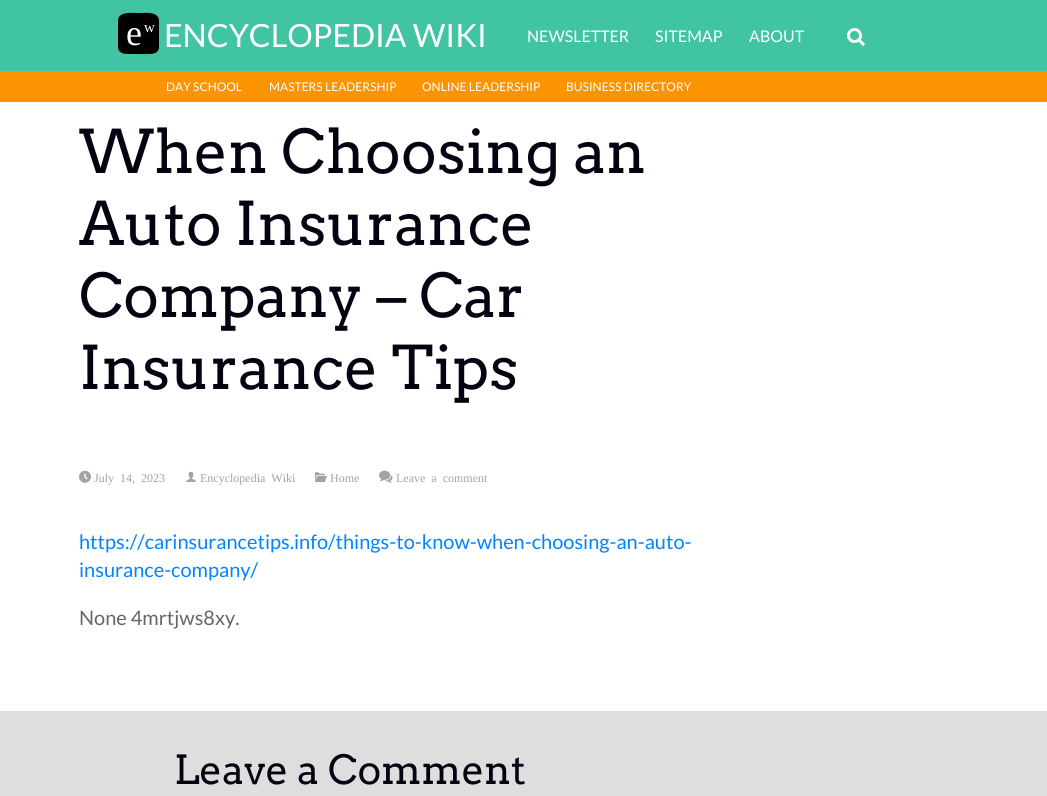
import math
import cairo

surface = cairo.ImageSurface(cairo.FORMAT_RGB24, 1047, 796)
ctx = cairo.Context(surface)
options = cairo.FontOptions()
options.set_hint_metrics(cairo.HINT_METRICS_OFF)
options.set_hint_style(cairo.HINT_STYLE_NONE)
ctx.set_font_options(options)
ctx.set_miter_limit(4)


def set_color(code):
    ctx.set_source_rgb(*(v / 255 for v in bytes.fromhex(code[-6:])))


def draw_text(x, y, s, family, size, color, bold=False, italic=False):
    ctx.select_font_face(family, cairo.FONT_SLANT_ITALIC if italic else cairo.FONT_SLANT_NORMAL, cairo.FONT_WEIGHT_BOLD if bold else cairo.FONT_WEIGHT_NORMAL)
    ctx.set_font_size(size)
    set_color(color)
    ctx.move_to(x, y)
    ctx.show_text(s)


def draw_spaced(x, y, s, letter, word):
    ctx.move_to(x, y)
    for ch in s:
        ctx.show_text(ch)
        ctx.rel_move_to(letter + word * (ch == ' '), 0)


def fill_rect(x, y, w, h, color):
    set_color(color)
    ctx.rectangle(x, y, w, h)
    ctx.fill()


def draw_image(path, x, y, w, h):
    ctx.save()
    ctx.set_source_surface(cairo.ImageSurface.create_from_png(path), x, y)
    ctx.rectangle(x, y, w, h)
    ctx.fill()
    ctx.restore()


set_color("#ffffff")
ctx.paint()
fill_rect(0, 0, 1047, 71, "#40c4a1")
set_color("#000000")
ctx.new_path()
ctx.move_to(159, 21)
ctx.line_to(159, 48)
ctx.curve_to(158, 54, 152, 54, 147, 54)
ctx.line_to(130, 54)
ctx.curve_to(125, 54, 119, 54, 118, 48)
ctx.line_to(118, 21)
ctx.curve_to(118, 11, 132, 13, 139, 13)
ctx.curve_to(145, 13, 159, 11, 159, 21)
ctx.close_path()
ctx.fill()
draw_text(126, 45, "e", "Liberation Serif", 36, "#ffffff")
draw_text(144, 32, "w", "Liberation Serif", 15, "#ffffff")
draw_text(164, 47, "ENCYCLOPEDIA WIKI", "Lato", 32, "#ffffff")
draw_text(527, 42, "NEWSLETTER", "Lato", 16, "#ffffff")
draw_text(655, 42, "SITEMAP", "Lato", 16, "#ffffff")
draw_text(749, 42, "ABOUT", "Lato", 16, "#ffffff")
draw_image("assets/img1.png", 847, 28, 18, 18)
fill_rect(0, 71, 1047, 31, "#fc9300")
draw_text(166, 91, "DAY SCHOOL", "Lato", 12, "#ffffff")
draw_text(269, 91, "MASTERS LEADERSHIP", "Lato", 12, "#ffffff")
draw_text(422, 91, "ONLINE LEADERSHIP", "Lato", 12, "#ffffff")
draw_text(566, 91, "BUSINESS DIRECTORY", "Lato", 12, "#ffffff")
draw_text(79, 173, "When Choosing an", "Arvo", 60, "#070211")
draw_text(79, 245, "Auto Insurance", "Arvo", 60, "#070211")
draw_text(79, 317, "Company – Car", "Arvo", 60, "#070211")
draw_text(79, 389, "Insurance Tips", "Arvo", 60, "#070211")
draw_image("assets/img2.png", 79, 470, 12, 13)
ctx.select_font_face("Liberation Serif")
ctx.set_font_size(12)
set_color("#a4a3a3")
draw_spaced(94, 482, "July 14, 2023", 0, 3)
draw_image("assets/img3.png", 185, 471, 12, 11)
draw_spaced(200, 482, "Encyclopedia Wiki", 0, 3)
draw_image("assets/img4.png", 315, 472, 12, 10)
draw_text(330, 482, "Home", "Liberation Serif", 12, "#a4a3a3")
draw_image("assets/img5.png", 379, 470, 14, 13)
draw_spaced(396, 482, "Leave a comment", 0, 3)
draw_text(79, 549, "https://carinsurancetips.info/things-to-know-when-choosing-an-auto-", "Lato", 20, "#0084ff")
draw_text(79, 577, "insurance-company/", "Lato", 20, "#0084ff")
draw_text(79, 625, "None 4mrtjws8xy.", "Lato", 20, "#666666")
fill_rect(0, 711, 1047, 85, "#dedede")
draw_text(174, 784, "Leave a Comment", "Arvo", 40, "#070211")
surface.write_to_png("output.png")
